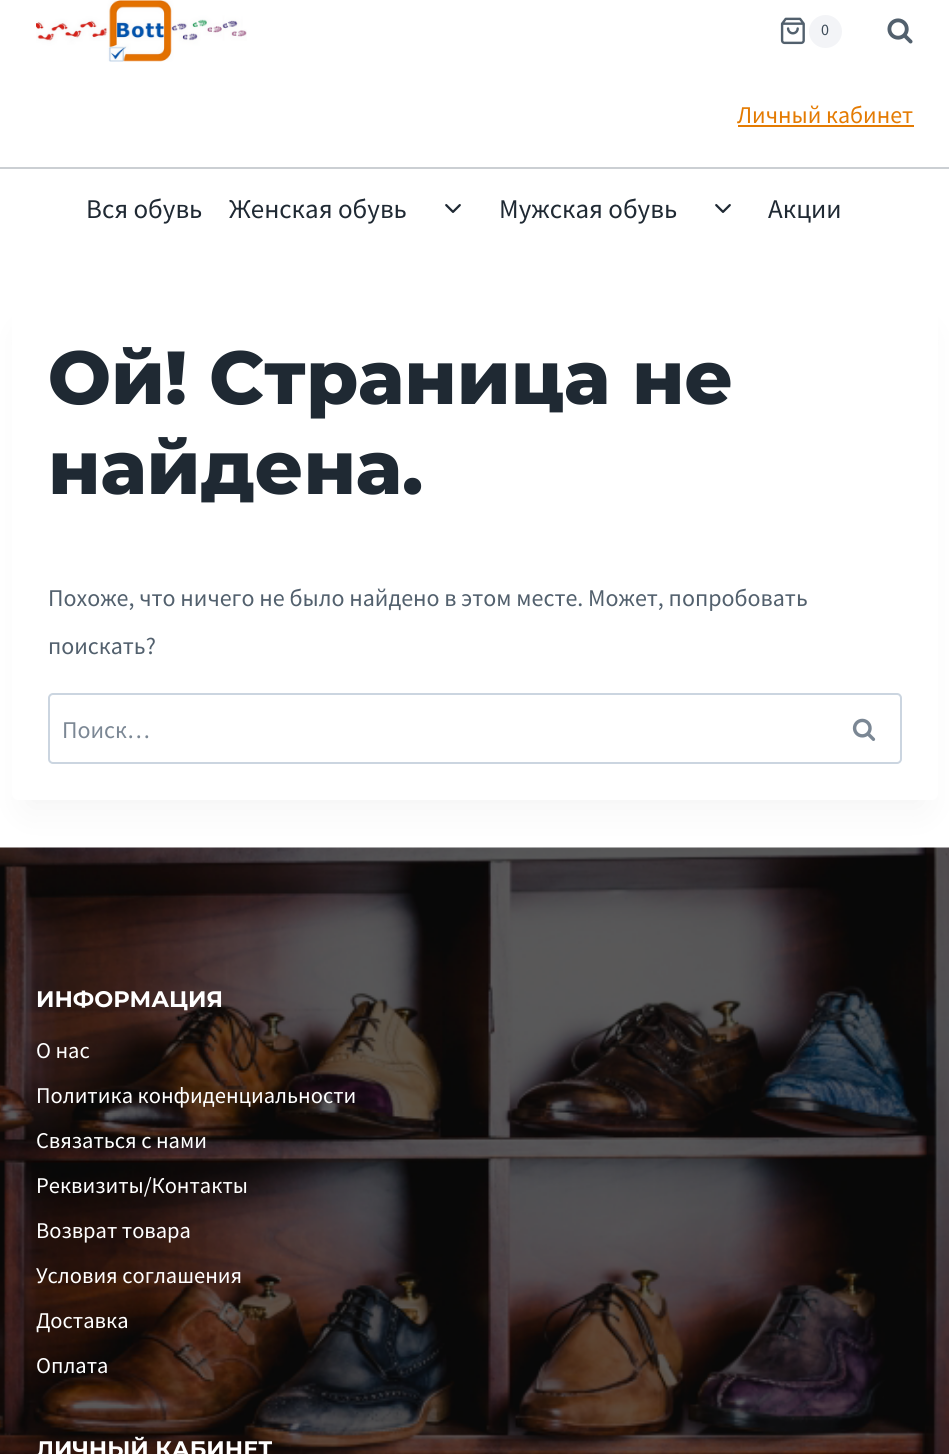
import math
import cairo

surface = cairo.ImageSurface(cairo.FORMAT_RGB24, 949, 1454)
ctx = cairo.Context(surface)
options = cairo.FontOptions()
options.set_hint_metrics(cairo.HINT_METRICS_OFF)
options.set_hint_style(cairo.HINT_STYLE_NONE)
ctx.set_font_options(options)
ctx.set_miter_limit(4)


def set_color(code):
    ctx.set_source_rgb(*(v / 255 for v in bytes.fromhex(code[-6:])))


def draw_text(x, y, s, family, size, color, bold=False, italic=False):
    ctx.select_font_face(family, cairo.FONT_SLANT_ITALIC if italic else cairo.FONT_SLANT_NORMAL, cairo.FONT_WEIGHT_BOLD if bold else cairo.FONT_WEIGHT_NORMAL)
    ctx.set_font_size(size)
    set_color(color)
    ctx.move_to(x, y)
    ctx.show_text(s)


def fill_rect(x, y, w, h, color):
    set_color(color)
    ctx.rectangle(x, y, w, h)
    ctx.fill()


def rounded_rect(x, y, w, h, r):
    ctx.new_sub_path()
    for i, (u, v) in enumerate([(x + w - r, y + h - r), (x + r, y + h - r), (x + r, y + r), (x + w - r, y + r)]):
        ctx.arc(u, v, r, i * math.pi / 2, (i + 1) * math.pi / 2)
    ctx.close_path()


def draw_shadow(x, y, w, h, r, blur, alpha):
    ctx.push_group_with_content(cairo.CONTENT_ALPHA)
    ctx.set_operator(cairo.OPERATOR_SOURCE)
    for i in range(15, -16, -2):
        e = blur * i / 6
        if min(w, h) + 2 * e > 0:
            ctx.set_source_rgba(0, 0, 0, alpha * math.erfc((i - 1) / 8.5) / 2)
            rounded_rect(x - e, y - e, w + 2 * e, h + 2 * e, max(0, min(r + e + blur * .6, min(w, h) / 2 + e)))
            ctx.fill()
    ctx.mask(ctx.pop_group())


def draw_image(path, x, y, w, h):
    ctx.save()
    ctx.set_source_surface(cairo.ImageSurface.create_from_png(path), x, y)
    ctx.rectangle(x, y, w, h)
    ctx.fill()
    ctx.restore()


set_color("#ffffff")
ctx.paint()
draw_image("assets/img1.png", 36, 0, 211, 62)
draw_image("assets/img2.png", 780, 17, 25, 28)
set_color("#f3f4f7")
ctx.arc(825.5, 31.5, 16.5, 0, 2 * math.pi)
ctx.fill()
draw_text(821, 35, "0", "Source Sans Pro", 16, "#3e4c59")
draw_image("assets/img3.png", 887, 18, 26, 26)
fill_rect(0, 167, 949, 2, "#cbcfd3")
draw_text(737, 123, "Личный кабинет", "Source Sans Pro", 24, "#e47b02")
fill_rect(738, 125, 176, 2, "#e47b02")
draw_text(86, 218, "Вся обувь", "Source Sans Pro", 27, "#1f2933")
draw_text(229, 218, "Женская обувь", "Source Sans Pro", 27, "#1f2933")
draw_image("assets/img4.png", 445, 204, 16, 9)
draw_text(499, 218, "Мужская обувь", "Source Sans Pro", 27, "#1f2933")
draw_image("assets/img4.png", 715, 204, 16, 9)
draw_text(768, 218, "Акции", "Source Sans Pro", 27, "#1f2933")
draw_image("assets/img6.png", 0, 847, 949, 607)
set_color("#000000")
draw_shadow(27, 335, 896, 472, 0, 19, 0.05)
set_color("#ffffff")
rounded_rect(12, 297, 926, 503, 6)
ctx.fill()
draw_text(48, 404, "Ой! Страница не", "Montserrat ExtraBold", 75, "#1f2933")
draw_text(48, 494, "найдена.", "Montserrat ExtraBold", 75, "#1f2933")
draw_text(48, 606, "Похоже, что ничего не было найдено в этом месте. Может, попробовать", "Source Sans Pro", 24, "#52606d")
draw_text(48, 654, "поискать?", "Source Sans Pro", 24, "#52606d")
rounded_rect(49, 694, 852, 69, 4)
set_color("#cbd5e0")
ctx.stroke()
draw_text(62, 738, "Поиск…", "Source Sans Pro", 24, "#7b8794")
draw_image("assets/img5.png", 852, 718, 24, 23)
draw_text(36, 1007, "ИНФОРМАЦИЯ", "Montserrat", 22.5, "#ffffff", bold=True)
draw_text(36, 1058, "О нас", "Source Sans Pro", 22.5, "#ffffff")
draw_text(36, 1103, "Политика конфиденциальности", "Source Sans Pro", 22.5, "#ffffff")
draw_text(36, 1148, "Связаться с нами", "Source Sans Pro", 22.5, "#ffffff")
draw_text(36, 1193, "Реквизиты/Контакты", "Source Sans Pro", 22.5, "#ffffff")
draw_text(36, 1238, "Возврат товара", "Source Sans Pro", 22.5, "#ffffff")
draw_text(36, 1283, "Условия соглашения", "Source Sans Pro", 22.5, "#ffffff")
draw_text(36, 1328, "Доставка", "Source Sans Pro", 22.5, "#ffffff")
draw_text(36, 1373, "Оплата", "Source Sans Pro", 22.5, "#ffffff")
draw_text(36, 1457, "ЛИЧНЫЙ КАБИНЕТ", "Montserrat", 22.5, "#ffffff", bold=True)
surface.write_to_png("output.png")
